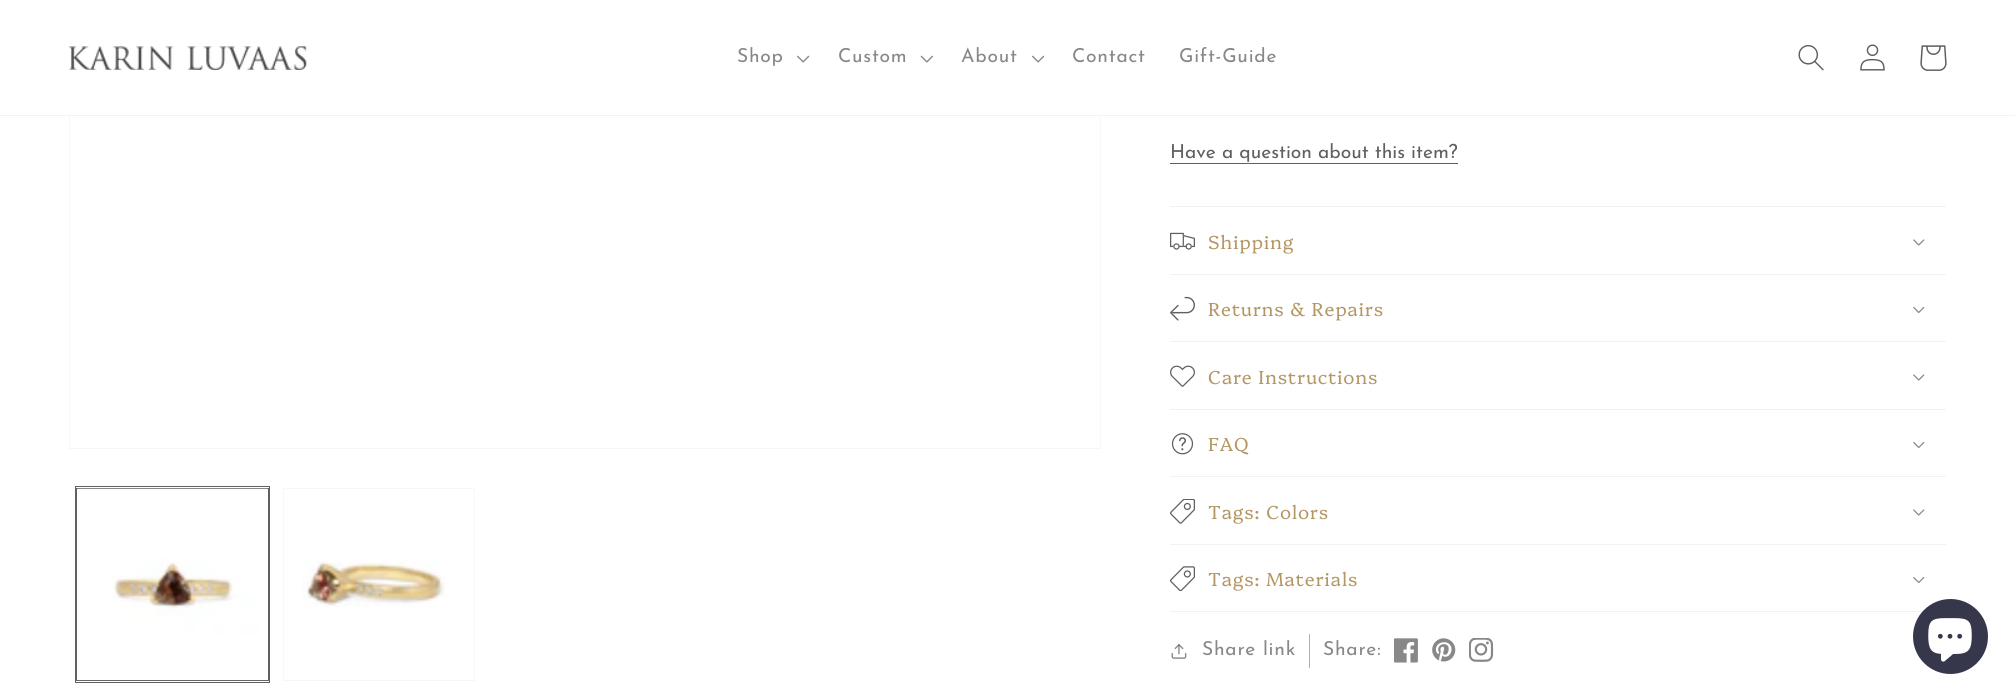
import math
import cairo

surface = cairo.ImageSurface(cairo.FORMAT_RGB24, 2015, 699)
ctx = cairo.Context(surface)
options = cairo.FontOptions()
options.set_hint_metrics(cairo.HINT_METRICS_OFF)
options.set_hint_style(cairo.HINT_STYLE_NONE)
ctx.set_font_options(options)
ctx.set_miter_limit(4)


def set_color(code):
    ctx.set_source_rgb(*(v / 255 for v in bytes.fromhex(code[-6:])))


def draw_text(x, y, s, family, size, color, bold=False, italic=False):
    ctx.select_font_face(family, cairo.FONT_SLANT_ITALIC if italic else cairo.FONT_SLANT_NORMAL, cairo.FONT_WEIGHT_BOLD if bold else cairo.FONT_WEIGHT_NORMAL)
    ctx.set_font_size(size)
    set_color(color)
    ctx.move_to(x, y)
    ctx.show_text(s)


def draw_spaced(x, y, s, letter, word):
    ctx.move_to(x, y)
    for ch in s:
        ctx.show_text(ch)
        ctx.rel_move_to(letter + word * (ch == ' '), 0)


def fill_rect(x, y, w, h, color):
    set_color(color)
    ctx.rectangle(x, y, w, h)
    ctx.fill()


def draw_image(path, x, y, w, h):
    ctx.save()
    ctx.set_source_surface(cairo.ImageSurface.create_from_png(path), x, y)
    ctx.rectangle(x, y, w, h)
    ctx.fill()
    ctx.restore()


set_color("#ffffff")
ctx.paint()
ctx.rectangle(69.5, -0.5, 1031, 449)
set_color("#f7f7f7")
ctx.set_line_width(1)
ctx.stroke()
fill_rect(69, 0, 1032, 115, "#ffffff")
fill_rect(0, 115, 2015, 1, "#f2f2f2")
draw_image("assets/img1.png", 68, 46, 239, 24)
ctx.select_font_face("Josefin Sans Thin")
ctx.set_font_size(19.25)
set_color("#888888")
draw_spaced(737, 62, "Shop", 0.75, 0)
draw_image("assets/img2.png", 797, 55, 13, 8)
draw_spaced(838, 62, "Custom", 0.75, 0)
draw_image("assets/img3.png", 920, 55, 13, 8)
draw_spaced(961, 62, "About", 0.75, 0)
draw_image("assets/img4.png", 1032, 55, 12, 8)
draw_spaced(1072, 62, "Contact", 0.75, 0)
draw_spaced(1179, 62, "Gift-Guide", 0.75, 0)
draw_image("assets/img5.png", 1798, 44, 26, 27)
draw_image("assets/img6.png", 1860, 44, 25, 27)
draw_image("assets/img7.png", 1920, 45, 27, 26)
ctx.rectangle(75.5, 486.5, 194, 196)
set_color("#606060")
ctx.stroke()
ctx.rectangle(76.5, 488.5, 192, 192)
ctx.stroke()
draw_image("assets/img8.png", 77, 488, 191, 193)
ctx.rectangle(283.5, 488.5, 191, 192)
set_color("#f7f7f7")
ctx.stroke()
draw_image("assets/img9.png", 302, 560, 143, 47)
draw_text(1170, 158, "Have a question about this item?", "Josefin Sans Thin", 19.25, "#606060")
fill_rect(1170, 163, 288, 1, "#606060")
fill_rect(1170, 206, 776, 1, "#f2f2f2")
fill_rect(1170, 274, 776, 1, "#f2f2f2")
draw_image("assets/img10.png", 1170, 232, 25, 18)
ctx.select_font_face("Platypi Light")
ctx.set_font_size(18.75)
set_color("#b39663")
draw_spaced(1208, 249, "Shipping", 0.75, 0)
draw_image("assets/img11.png", 1913, 239, 12, 7)
fill_rect(1170, 341, 776, 1, "#f2f2f2")
draw_image("assets/img12.png", 1170, 296, 25, 25)
set_color("#b39663")
draw_spaced(1208, 316, "Returns & Repairs", 0.75, 0)
draw_image("assets/img13.png", 1913, 306, 12, 8)
fill_rect(1170, 409, 776, 1, "#f2f2f2")
draw_image("assets/img14.png", 1170, 365, 25, 22)
set_color("#b39663")
draw_spaced(1208, 384, "Care Instructions", 0.75, 0)
draw_image("assets/img11.png", 1913, 374, 12, 7)
fill_rect(1170, 476, 776, 1, "#f2f2f2")
draw_image("assets/img15.png", 1171, 433, 23, 22)
set_color("#b39663")
draw_spaced(1208, 451, "FAQ", 0.75, 0)
draw_image("assets/img13.png", 1913, 441, 12, 8)
fill_rect(1170, 544, 776, 1, "#f2f2f2")
draw_image("assets/img16.png", 1170, 499, 25, 25)
set_color("#b39663")
draw_spaced(1208, 519, "Tags: Colors", 0.75, 0)
draw_image("assets/img11.png", 1913, 509, 12, 7)
fill_rect(1170, 611, 753, 1, "#f2f2f2")
draw_image("assets/img17.png", 1170, 566, 25, 25)
set_color("#b39663")
draw_spaced(1208, 586, "Tags: Materials", 0.75, 0)
draw_image("assets/img13.png", 1913, 576, 12, 8)
draw_image("assets/img18.png", 1171, 644, 16, 15)
ctx.select_font_face("Josefin Sans Thin")
ctx.set_font_size(19.25)
set_color("#888888")
draw_spaced(1202, 655, "Share link", 0.75, 0)
fill_rect(1309, 634, 1, 34, "#b0b0b0")
set_color("#888888")
draw_spaced(1323, 655, "Share:", 0.75, 0)
draw_image("assets/img19.png", 1394, 638, 24, 25)
draw_image("assets/img20.png", 1432, 638, 24, 24)
draw_image("assets/img21.png", 1469, 638, 25, 24)
set_color("#36374b")
ctx.arc(1950.5, 636.5, 37.5, 0, 2 * math.pi)
ctx.fill()
draw_image("assets/img22.png", 1928, 618, 44, 44)
surface.write_to_png("output.png")
